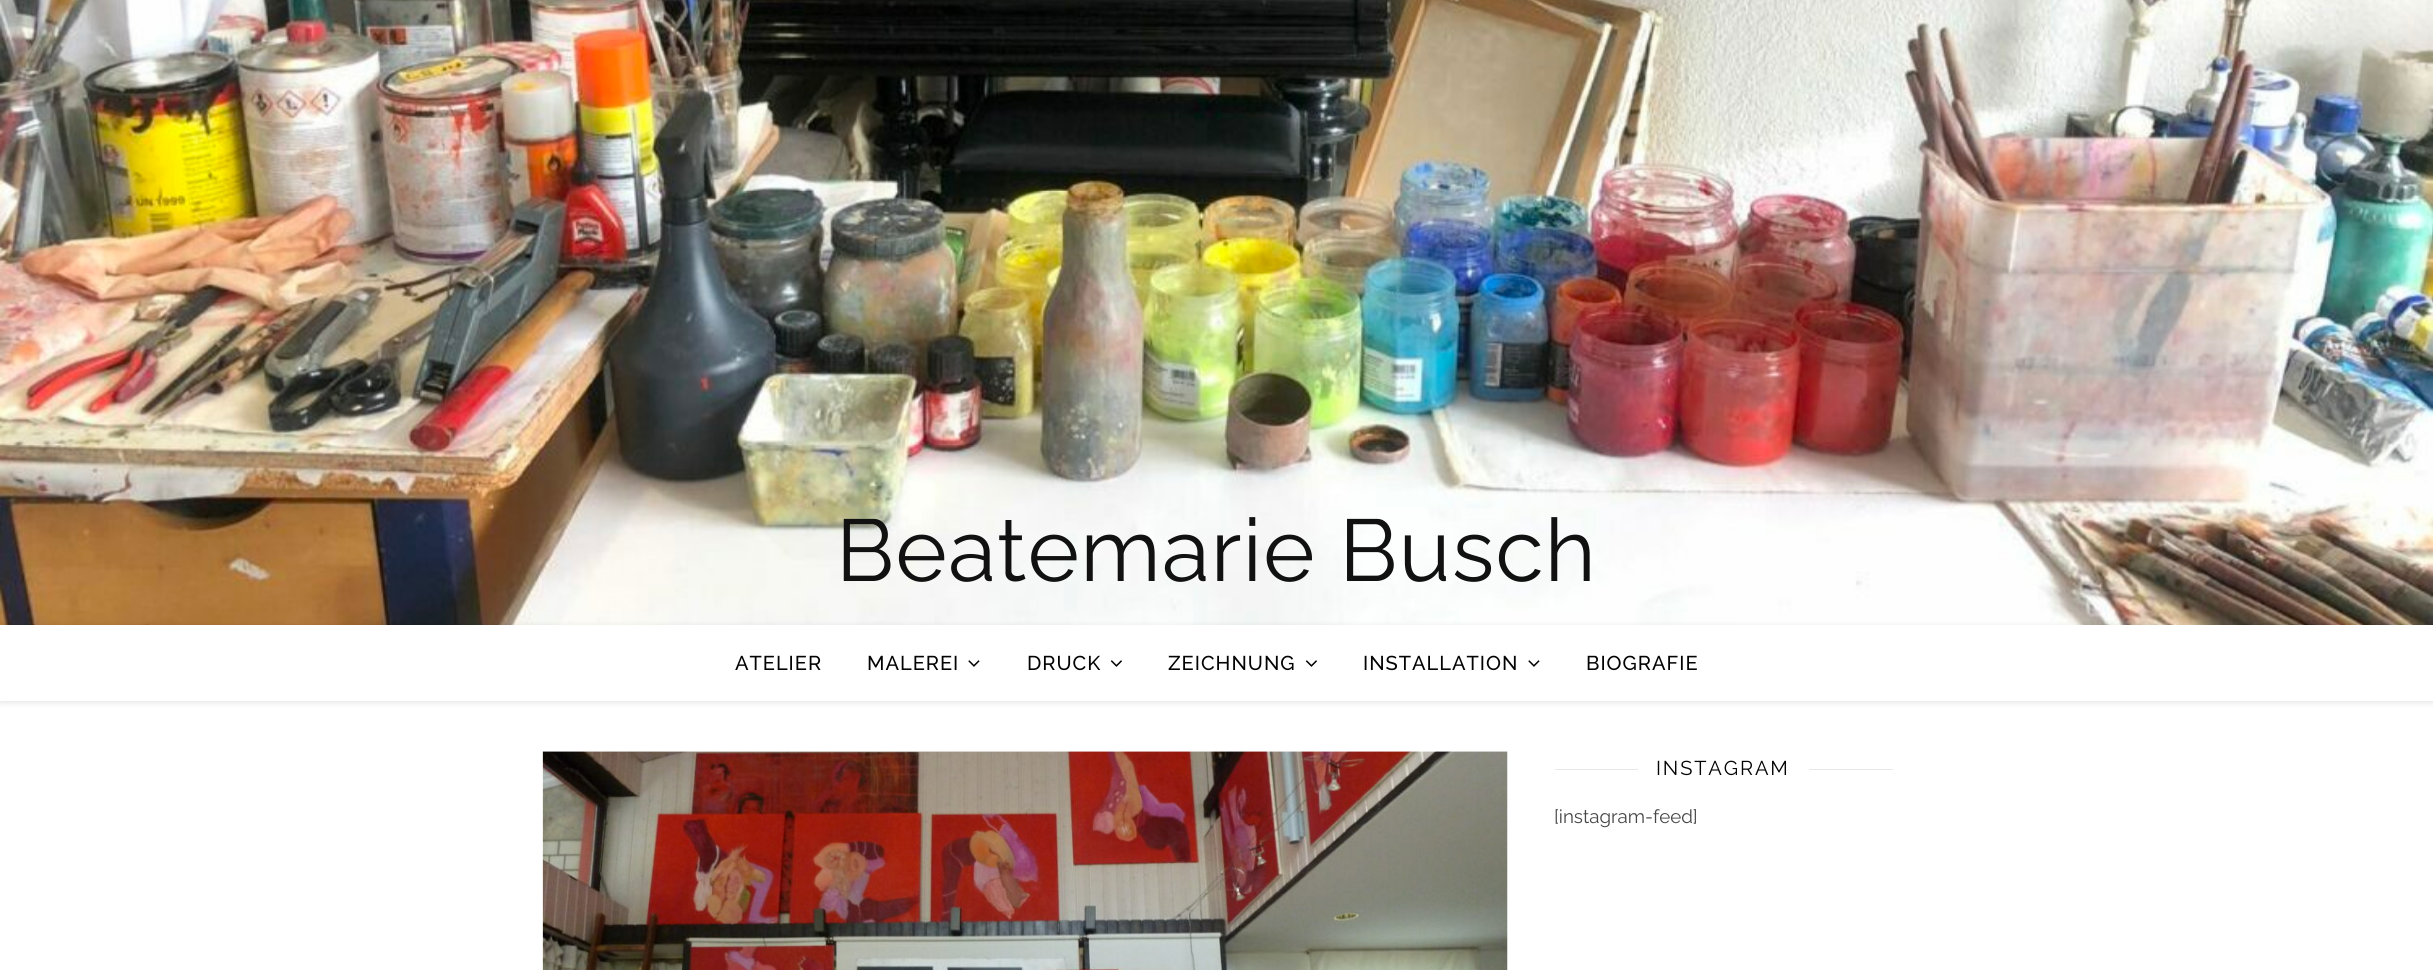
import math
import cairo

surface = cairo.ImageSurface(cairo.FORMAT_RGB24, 2433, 970)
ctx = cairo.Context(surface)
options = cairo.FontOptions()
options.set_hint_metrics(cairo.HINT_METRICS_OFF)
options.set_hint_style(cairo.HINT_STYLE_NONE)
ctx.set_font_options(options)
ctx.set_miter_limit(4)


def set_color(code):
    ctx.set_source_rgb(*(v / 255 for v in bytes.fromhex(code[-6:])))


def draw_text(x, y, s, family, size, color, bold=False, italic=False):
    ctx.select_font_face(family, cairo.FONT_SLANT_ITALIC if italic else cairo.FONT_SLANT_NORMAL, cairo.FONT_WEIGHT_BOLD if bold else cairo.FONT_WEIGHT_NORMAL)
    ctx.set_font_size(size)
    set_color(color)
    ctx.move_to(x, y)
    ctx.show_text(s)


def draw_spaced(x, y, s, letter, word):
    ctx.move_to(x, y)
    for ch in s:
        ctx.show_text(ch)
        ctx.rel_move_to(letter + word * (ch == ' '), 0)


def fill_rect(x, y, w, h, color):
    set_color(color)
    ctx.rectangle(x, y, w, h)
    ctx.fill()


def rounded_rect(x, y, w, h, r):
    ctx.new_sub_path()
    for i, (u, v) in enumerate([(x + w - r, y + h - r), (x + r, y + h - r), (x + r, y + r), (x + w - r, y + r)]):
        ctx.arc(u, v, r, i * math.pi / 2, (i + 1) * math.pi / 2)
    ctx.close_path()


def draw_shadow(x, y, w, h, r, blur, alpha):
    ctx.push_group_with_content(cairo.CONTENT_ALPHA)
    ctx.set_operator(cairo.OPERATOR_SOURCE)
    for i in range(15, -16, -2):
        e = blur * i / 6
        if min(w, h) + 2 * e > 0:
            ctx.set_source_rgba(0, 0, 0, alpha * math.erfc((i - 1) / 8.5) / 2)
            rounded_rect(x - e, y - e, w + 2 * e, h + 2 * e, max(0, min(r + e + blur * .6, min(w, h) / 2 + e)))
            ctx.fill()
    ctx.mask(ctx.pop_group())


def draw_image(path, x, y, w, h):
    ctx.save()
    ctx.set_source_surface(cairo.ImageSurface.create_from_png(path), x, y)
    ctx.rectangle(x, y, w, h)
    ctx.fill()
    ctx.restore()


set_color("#ffffff")
ctx.paint()
draw_image("assets/img1.png", 0, 0, 2433, 625)
ctx.select_font_face("Raleway")
ctx.set_font_size(87.5)
set_color("#111111")
draw_spaced(836, 581, "Beatemarie Busch", 1.25, 0)
ctx.save()
ctx.set_fill_rule(cairo.FILL_RULE_EVEN_ODD)
ctx.new_path()
ctx.move_to(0, 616)
ctx.line_to(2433, 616)
ctx.line_to(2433, 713)
ctx.line_to(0, 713)
ctx.close_path()
ctx.move_to(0, 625)
ctx.line_to(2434, 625)
ctx.line_to(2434, 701)
ctx.line_to(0, 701)
ctx.close_path()
ctx.clip()
set_color("#000000")
draw_shadow(0, 626, 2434, 77, 0, 3, 0.1)
ctx.restore()
ctx.select_font_face("Raleway Medium")
ctx.set_font_size(20)
set_color("#030303")
draw_spaced(735, 670, "ATELIER", 1, 0)
draw_spaced(867, 670, "MALEREI", 1, 0)
draw_image("assets/img2.png", 968, 660, 12, 7)
draw_spaced(1027, 670, "DRUCK", 1, 0)
draw_image("assets/img3.png", 1110, 660, 12, 7)
draw_spaced(1168, 670, "ZEICHNUNG", 1, 0)
draw_image("assets/img3.png", 1305, 660, 12, 7)
draw_spaced(1363, 670, "INSTALLATION", 1, 0)
draw_image("assets/img2.png", 1528, 660, 12, 7)
draw_spaced(1586, 670, "BIOGRAFIE", 1, 0)
draw_image("assets/img4.png", 542, 751, 966, 219)
fill_rect(1555, 769, 83, 1, "#e8e8e8")
ctx.select_font_face("Raleway")
set_color("#030303")
draw_spaced(1656, 775, "INSTAGRAM", 1.9, 0)
fill_rect(1809, 769, 84, 1, "#e8e8e8")
draw_text(1554, 823, "[instagram-feed]", "Raleway", 18.75, "#464646")
surface.write_to_png("output.png")
